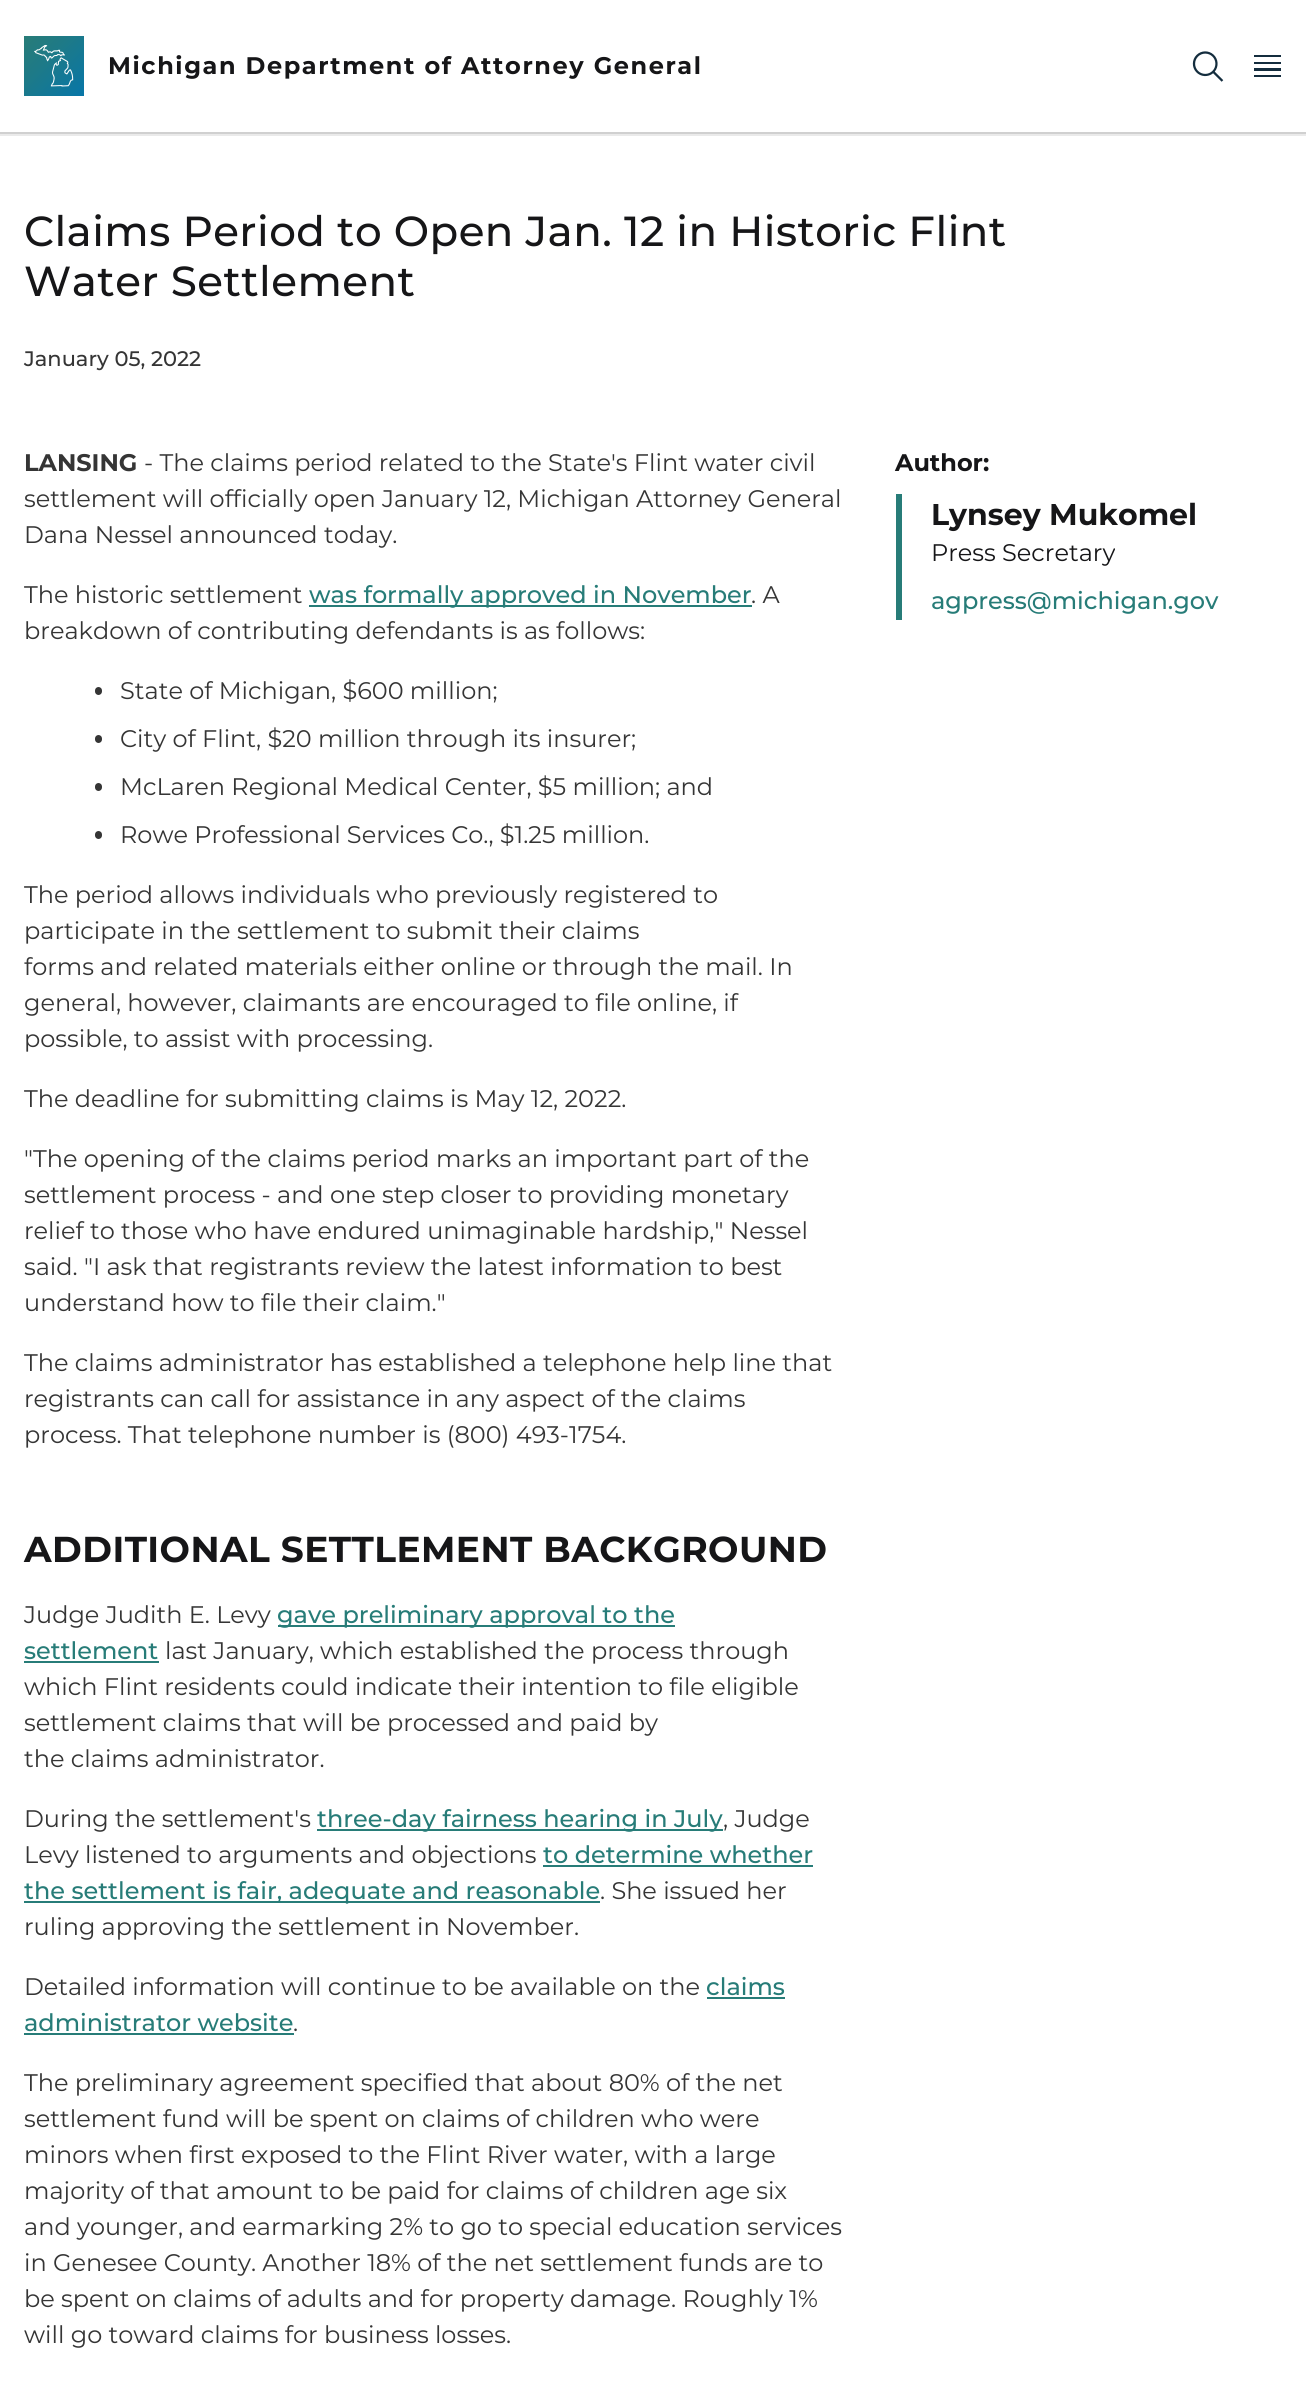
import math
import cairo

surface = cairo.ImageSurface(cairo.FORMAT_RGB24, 1306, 2392)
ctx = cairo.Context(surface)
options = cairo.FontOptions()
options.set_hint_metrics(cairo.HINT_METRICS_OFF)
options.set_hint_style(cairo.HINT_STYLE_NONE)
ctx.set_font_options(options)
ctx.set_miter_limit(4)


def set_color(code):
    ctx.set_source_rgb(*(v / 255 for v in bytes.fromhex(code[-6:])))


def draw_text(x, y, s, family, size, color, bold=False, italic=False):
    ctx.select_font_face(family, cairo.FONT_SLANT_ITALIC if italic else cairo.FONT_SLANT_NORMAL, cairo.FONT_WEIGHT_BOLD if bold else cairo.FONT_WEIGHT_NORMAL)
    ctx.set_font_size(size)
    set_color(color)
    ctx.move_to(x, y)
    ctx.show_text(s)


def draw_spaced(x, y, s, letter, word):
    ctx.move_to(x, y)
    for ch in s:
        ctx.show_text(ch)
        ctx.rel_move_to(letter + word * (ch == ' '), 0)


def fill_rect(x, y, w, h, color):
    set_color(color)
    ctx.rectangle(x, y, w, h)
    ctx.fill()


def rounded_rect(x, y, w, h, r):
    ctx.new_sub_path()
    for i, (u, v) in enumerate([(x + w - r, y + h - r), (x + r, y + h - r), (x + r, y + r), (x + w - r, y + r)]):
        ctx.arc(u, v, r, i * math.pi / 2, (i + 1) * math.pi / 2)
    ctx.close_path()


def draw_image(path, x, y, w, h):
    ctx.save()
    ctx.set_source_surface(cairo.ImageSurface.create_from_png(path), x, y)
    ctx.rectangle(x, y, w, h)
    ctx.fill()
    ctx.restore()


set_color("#ffffff")
ctx.paint()
fill_rect(0, 132, 1306, 2, "#d0d0d0")
draw_image("assets/img1.png", 24, 36, 60, 60)
ctx.select_font_face("Montserrat", cairo.FONT_SLANT_NORMAL, cairo.FONT_WEIGHT_BOLD)
ctx.set_font_size(24)
set_color("#161618")
draw_spaced(108, 74, "Michigan Department of Attorney General", 1.6, 0)
draw_image("assets/img2.png", 1192, 51, 32, 31)
fill_rect(1254, 75, 27, 2, "#142d3e")
fill_rect(1254, 62, 27, 2, "#142d3e")
fill_rect(1254, 68, 27, 3, "#142d3e")
fill_rect(1254, 55, 27, 2, "#142d3e")
fill_rect(0, 134, 1306, 2, "#eaeaea")
ctx.select_font_face("Montserrat Medium")
ctx.set_font_size(42)
set_color("#161618")
draw_spaced(24, 246, "Claims Period to Open Jan. 12 in Historic Flint", 0.45, 0)
draw_spaced(24, 296, "Water Settlement", 0.45, 0)
draw_text(24, 366, "January 05, 2022", "Montserrat Medium", 21, "#353535")
draw_text(24, 471, "LANSING", "Montserrat", 24, "#353535", bold=True)
draw_text(144, 471, "- The claims period related to the State's Flint water civil", "Montserrat", 24, "#353535")
draw_text(24, 507, "settlement will officially open January 12, Michigan Attorney General", "Montserrat", 24, "#353535")
draw_text(24, 543, "Dana Nessel announced today.", "Montserrat", 24, "#353535")
draw_text(24, 603, "The historic settlement", "Montserrat", 24, "#353535")
fill_rect(309, 605, 443, 2, "#277c78")
draw_text(309, 603, "was formally approved in November", "Montserrat Medium", 24, "#277c78")
draw_text(751, 603, ". A", "Montserrat", 24, "#353535")
draw_text(24, 639, "breakdown of contributing defendants is as follows:", "Montserrat", 24, "#353535")
rounded_rect(95, 687, 7, 8, 3.5)
ctx.fill()
draw_text(120, 699, "State of Michigan, $600 million;", "Montserrat", 24, "#353535")
rounded_rect(95, 735, 7, 8, 3.5)
ctx.fill()
draw_text(120, 747, "City of Flint, $20 million through its insurer;", "Montserrat", 24, "#353535")
rounded_rect(95, 783, 7, 8, 3.5)
ctx.fill()
draw_text(120, 795, "McLaren Regional Medical Center, $5 million; and", "Montserrat", 24, "#353535")
rounded_rect(95, 831, 7, 8, 3.5)
ctx.fill()
draw_text(120, 843, "Rowe Professional Services Co., $1.25 million.", "Montserrat", 24, "#353535")
draw_text(24, 903, "The period allows individuals who previously registered to", "Montserrat", 24, "#353535")
draw_text(24, 939, "participate in the settlement to submit their claims", "Montserrat", 24, "#353535")
draw_text(24, 975, "forms and related materials either online or through the mail. In", "Montserrat", 24, "#353535")
draw_text(24, 1011, "general, however, claimants are encouraged to file online, if", "Montserrat", 24, "#353535")
draw_text(24, 1047, "possible, to assist with processing.", "Montserrat", 24, "#353535")
draw_text(24, 1107, "The deadline for submitting claims is May 12, 2022.", "Montserrat", 24, "#353535")
draw_text(24, 1167, "\"The opening of the claims period marks an important part of the", "Montserrat", 24, "#353535")
draw_text(24, 1203, "settlement process - and one step closer to providing monetary", "Montserrat", 24, "#353535")
draw_text(24, 1239, "relief to those who have endured unimaginable hardship,\" Nessel", "Montserrat", 24, "#353535")
draw_text(24, 1275, "said. \"I ask that registrants review the latest information to best", "Montserrat", 24, "#353535")
draw_text(24, 1311, "understand how to file their claim.\"", "Montserrat", 24, "#353535")
draw_text(24, 1371, "The claims administrator has established a telephone help line that", "Montserrat", 24, "#353535")
draw_text(24, 1407, "registrants can call for assistance in any aspect of the claims", "Montserrat", 24, "#353535")
draw_text(24, 1443, "process. That telephone number is (800) 493-1754.", "Montserrat", 24, "#353535")
ctx.select_font_face("Montserrat", cairo.FONT_SLANT_NORMAL, cairo.FONT_WEIGHT_BOLD)
ctx.set_font_size(36)
set_color("#161618")
draw_spaced(24, 1562, "ADDITIONAL SETTLEMENT BACKGROUND", 0.45, 0)
draw_text(24, 1623, "Judge Judith E. Levy", "Montserrat", 24, "#353535")
fill_rect(278, 1625, 397, 2, "#277c78")
draw_text(277, 1623, "gave preliminary approval to the", "Montserrat Medium", 24, "#277c78")
draw_text(24, 1659, "settlement", "Montserrat Medium", 24, "#277c78")
fill_rect(24, 1661, 135, 2, "#277c78")
draw_text(165, 1659, "last January, which established the process through", "Montserrat", 24, "#353535")
draw_text(24, 1695, "which Flint residents could indicate their intention to file eligible", "Montserrat", 24, "#353535")
draw_text(24, 1731, "settlement claims that will be processed and paid by", "Montserrat", 24, "#353535")
draw_text(24, 1767, "the claims administrator.", "Montserrat", 24, "#353535")
draw_text(24, 1827, "During the settlement's", "Montserrat", 24, "#353535")
fill_rect(317, 1829, 406, 2, "#277c78")
draw_text(317, 1827, "three-day fairness hearing in July", "Montserrat Medium", 24, "#277c78")
draw_text(723, 1827, ", Judge", "Montserrat", 24, "#353535")
draw_text(24, 1863, "Levy listened to arguments and objections", "Montserrat", 24, "#353535")
draw_text(543, 1863, "to determine whether", "Montserrat Medium", 24, "#277c78")
fill_rect(543, 1865, 270, 2, "#277c78")
fill_rect(24, 1901, 576, 2, "#277c78")
draw_text(24, 1899, "the settlement is fair, adequate and reasonable", "Montserrat Medium", 24, "#277c78")
draw_text(600, 1899, ". She issued her", "Montserrat", 24, "#353535")
draw_text(24, 1935, "ruling approving the settlement in November.", "Montserrat", 24, "#353535")
draw_text(24, 1995, "Detailed information will continue to be available on the", "Montserrat", 24, "#353535")
draw_text(706, 1995, "claims", "Montserrat Medium", 24, "#277c78")
fill_rect(707, 1997, 78, 2, "#277c78")
draw_text(24, 2031, "administrator website", "Montserrat Medium", 24, "#277c78")
fill_rect(24, 2033, 270, 2, "#277c78")
draw_text(293, 2031, ".", "Montserrat", 24, "#353535")
draw_text(24, 2091, "The preliminary agreement specified that about 80% of the net", "Montserrat", 24, "#353535")
draw_text(24, 2127, "settlement fund will be spent on claims of children who were", "Montserrat", 24, "#353535")
draw_text(24, 2163, "minors when first exposed to the Flint River water, with a large", "Montserrat", 24, "#353535")
draw_text(24, 2199, "majority of that amount to be paid for claims of children age six", "Montserrat", 24, "#353535")
draw_text(24, 2235, "and younger, and earmarking 2% to go to special education services", "Montserrat", 24, "#353535")
draw_text(24, 2271, "in Genesee County. Another 18% of the net settlement funds are to", "Montserrat", 24, "#353535")
draw_text(24, 2307, "be spent on claims of adults and for property damage. Roughly 1%", "Montserrat", 24, "#353535")
draw_text(24, 2343, "will go toward claims for business losses.", "Montserrat", 24, "#353535")
draw_text(895, 471, "Author:", "Montserrat", 24, "#161618", bold=True)
fill_rect(896, 494, 6, 126, "#277c78")
draw_text(931, 525, "Lynsey Mukomel", "Montserrat", 30, "#161618", bold=True)
draw_text(931, 561, "Press Secretary", "Montserrat", 24, "#161618")
draw_text(931, 609, "agpress@michigan.gov", "Montserrat Medium", 24, "#277c78")
surface.write_to_png("output.png")
